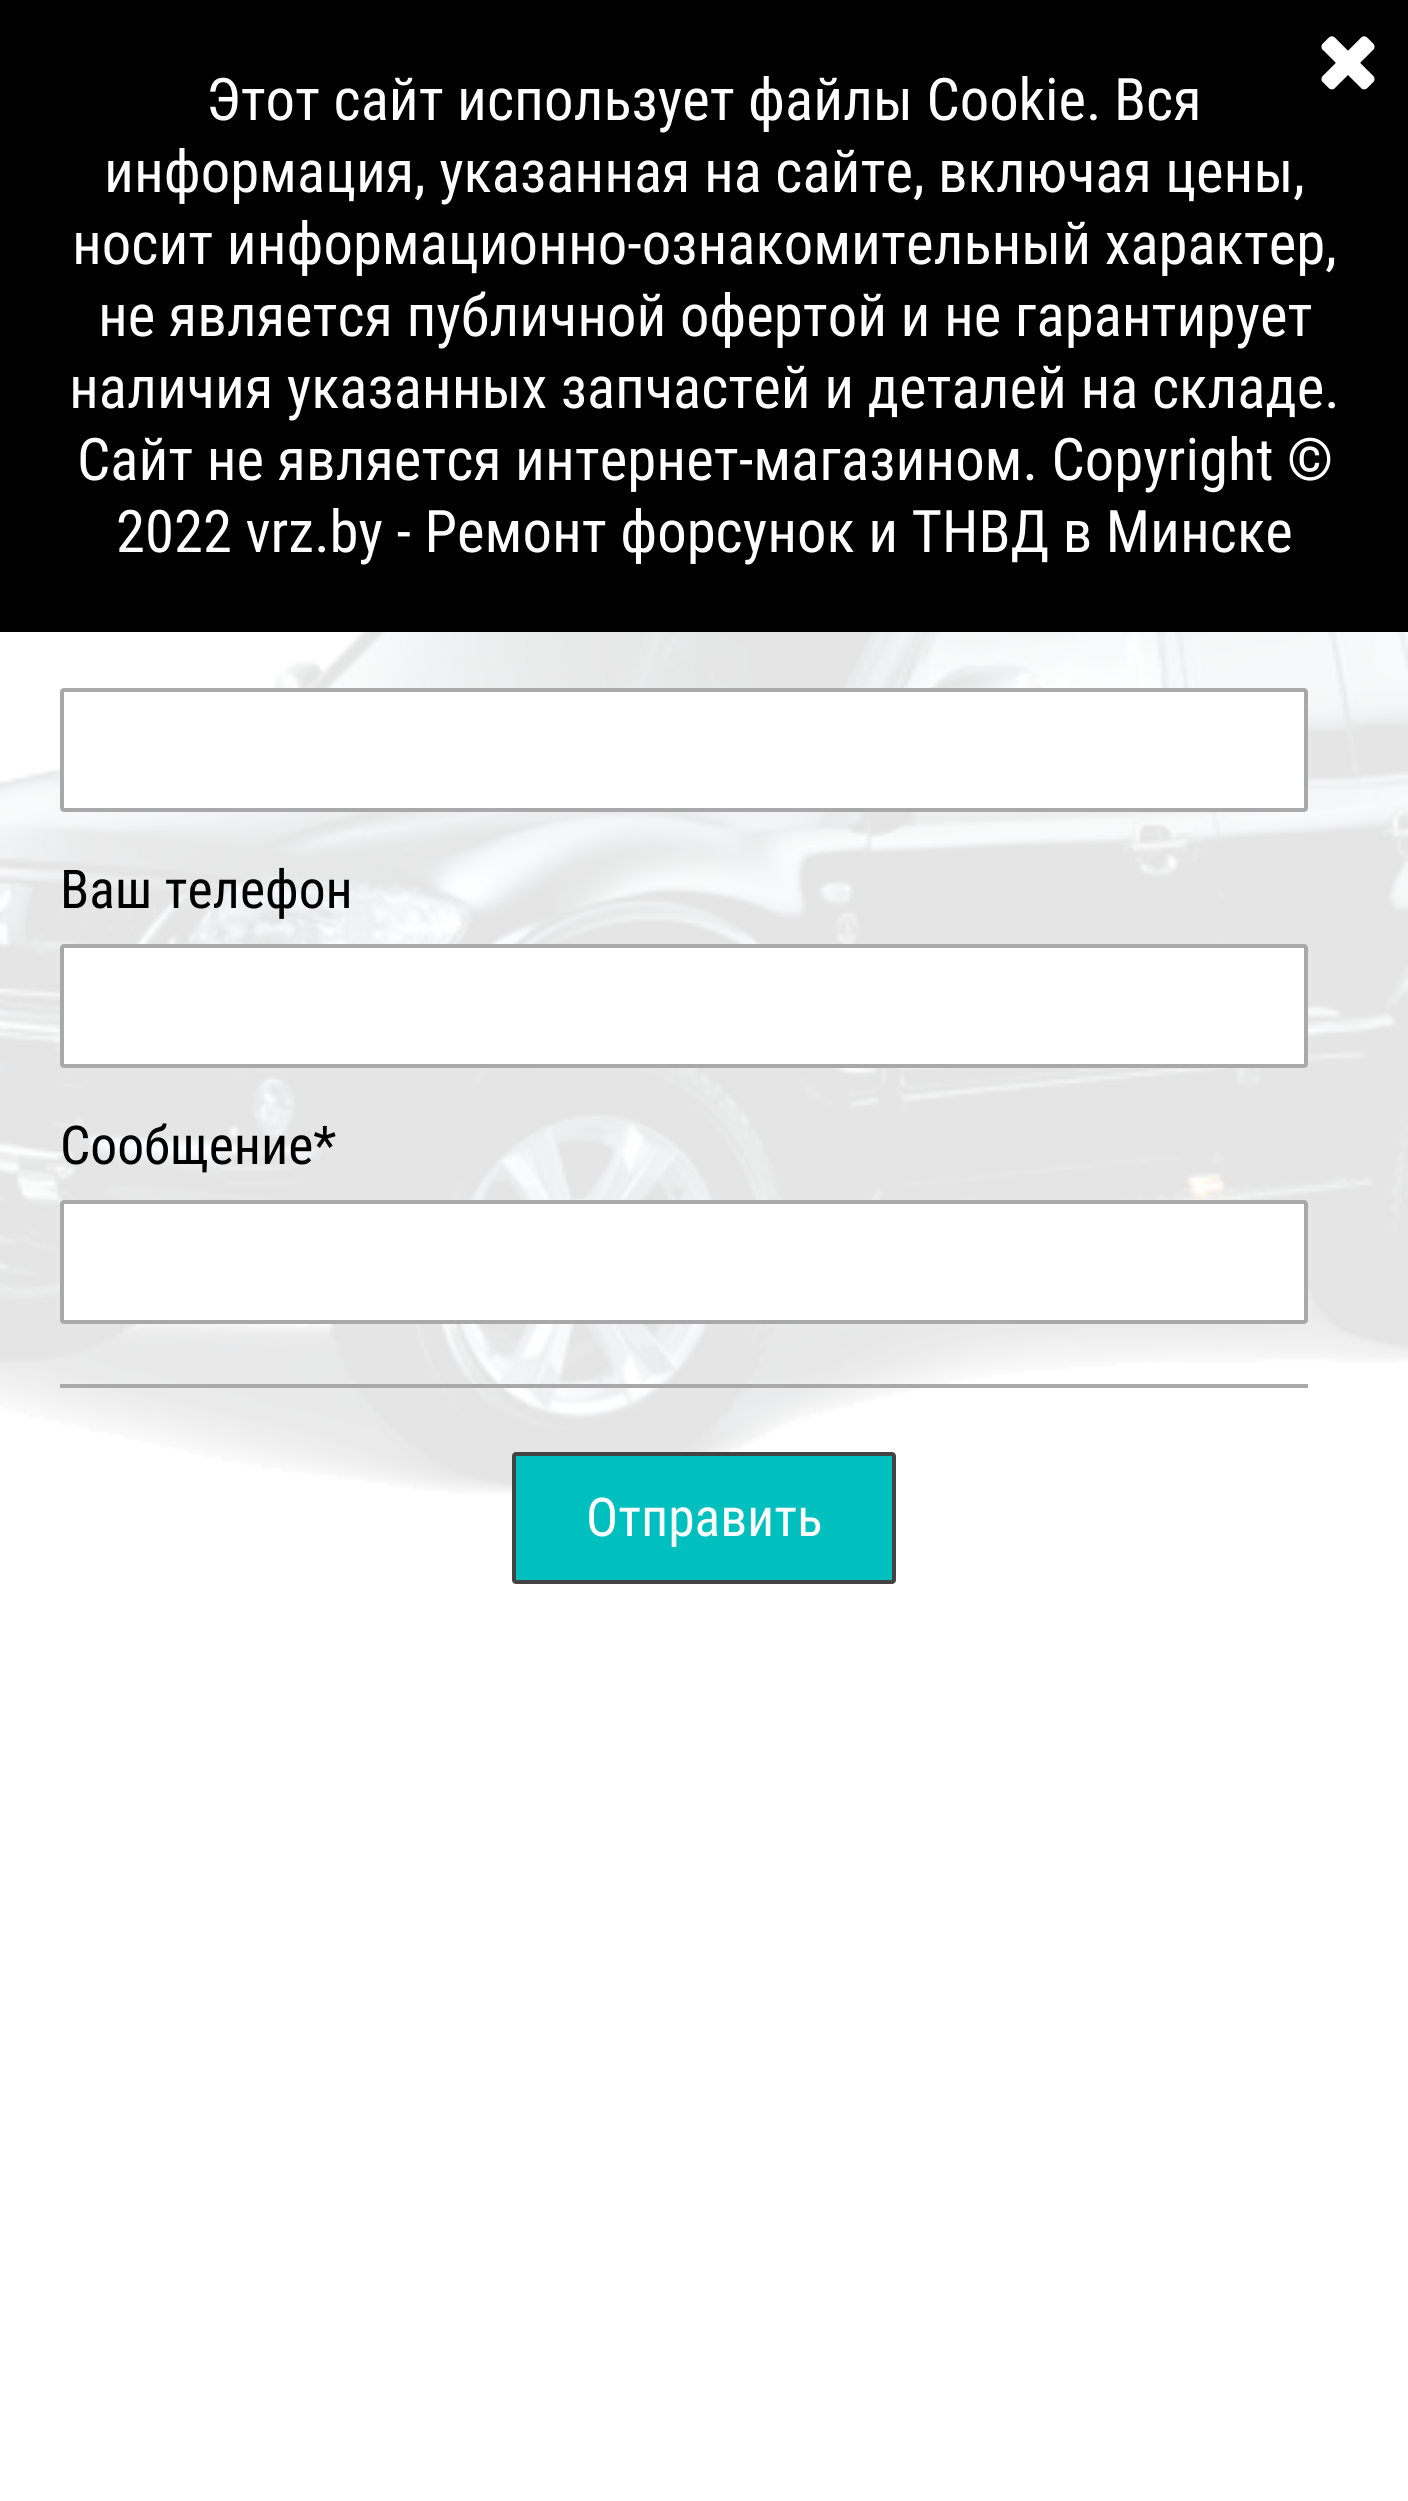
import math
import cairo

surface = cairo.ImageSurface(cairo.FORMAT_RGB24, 1408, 2501)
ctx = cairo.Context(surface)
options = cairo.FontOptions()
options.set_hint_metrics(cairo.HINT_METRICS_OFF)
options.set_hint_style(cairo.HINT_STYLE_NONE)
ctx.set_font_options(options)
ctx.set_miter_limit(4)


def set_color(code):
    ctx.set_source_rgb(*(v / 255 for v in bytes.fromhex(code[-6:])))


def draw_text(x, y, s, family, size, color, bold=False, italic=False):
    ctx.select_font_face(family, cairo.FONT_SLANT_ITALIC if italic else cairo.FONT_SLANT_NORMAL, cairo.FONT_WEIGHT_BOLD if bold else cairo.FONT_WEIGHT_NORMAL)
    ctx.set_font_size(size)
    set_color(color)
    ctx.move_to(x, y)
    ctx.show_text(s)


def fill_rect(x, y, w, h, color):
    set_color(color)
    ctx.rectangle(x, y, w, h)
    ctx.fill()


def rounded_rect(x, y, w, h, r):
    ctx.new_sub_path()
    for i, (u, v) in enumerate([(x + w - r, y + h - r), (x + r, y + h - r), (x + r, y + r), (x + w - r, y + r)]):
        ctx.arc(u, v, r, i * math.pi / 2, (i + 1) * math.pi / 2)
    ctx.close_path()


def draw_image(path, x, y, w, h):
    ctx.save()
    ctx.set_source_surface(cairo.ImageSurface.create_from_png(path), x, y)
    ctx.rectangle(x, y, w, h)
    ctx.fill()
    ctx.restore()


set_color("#ffffff")
ctx.paint()
fill_rect(0, 0, 1408, 632, "#000000")
draw_image("assets/img1.png", 1321, 36, 54, 54)
draw_text(206, 120, "Этот сайт использует файлы Cookie.", "Roboto Condensed", 58.7, "#ffffff")
draw_text(1114, 120, "Вся", "Roboto Condensed", 58.7, "#ffffff")
draw_text(104, 192, "информация, указанная на сайте, включая цены,", "Roboto Condensed", 58.7, "#ffffff")
draw_text(72, 264, "носит информационно-ознакомительный характер,", "Roboto Condensed", 58.7, "#ffffff")
draw_text(98, 336, "не является публичной офертой и не гарантирует", "Roboto Condensed", 58.7, "#ffffff")
draw_text(69, 408, "наличия указанных запчастей и деталей на складе.", "Roboto Condensed", 58.7, "#ffffff")
draw_text(77, 480, "Сайт не является интернет-магазином. Copyright ©", "Roboto Condensed", 58.7, "#ffffff")
draw_text(116, 552, "2022 vrz.by - Ремонт форсунок и ТНВД в Минске", "Roboto Condensed", 58.7, "#ffffff")
draw_image("assets/img2.png", 0, 632, 1408, 862)
rounded_rect(62, 690, 1244, 120, 2)
ctx.fill_preserve()
set_color("#a9a9a9")
ctx.set_line_width(4)
ctx.stroke()
draw_text(60, 908, "Ваш телефон", "Roboto Condensed", 53.5, "#000000")
set_color("#ffffff")
rounded_rect(62, 946, 1244, 120, 2)
ctx.fill_preserve()
set_color("#a9a9a9")
ctx.stroke()
draw_text(60, 1164, "Сообщение*", "Roboto Condensed", 53.5, "#000000")
set_color("#ffffff")
rounded_rect(62, 1202, 1244, 120, 2)
ctx.fill_preserve()
set_color("#a9a9a9")
ctx.stroke()
fill_rect(60, 1384, 1248, 4, "#a9a9a9")
set_color("#00bfbf")
rounded_rect(514, 1454, 380, 128, 2)
ctx.fill_preserve()
set_color("#434343")
ctx.stroke()
draw_text(586, 1536, "Отправить", "Roboto Condensed", 53.5, "#ffffff")
surface.write_to_png("output.png")
